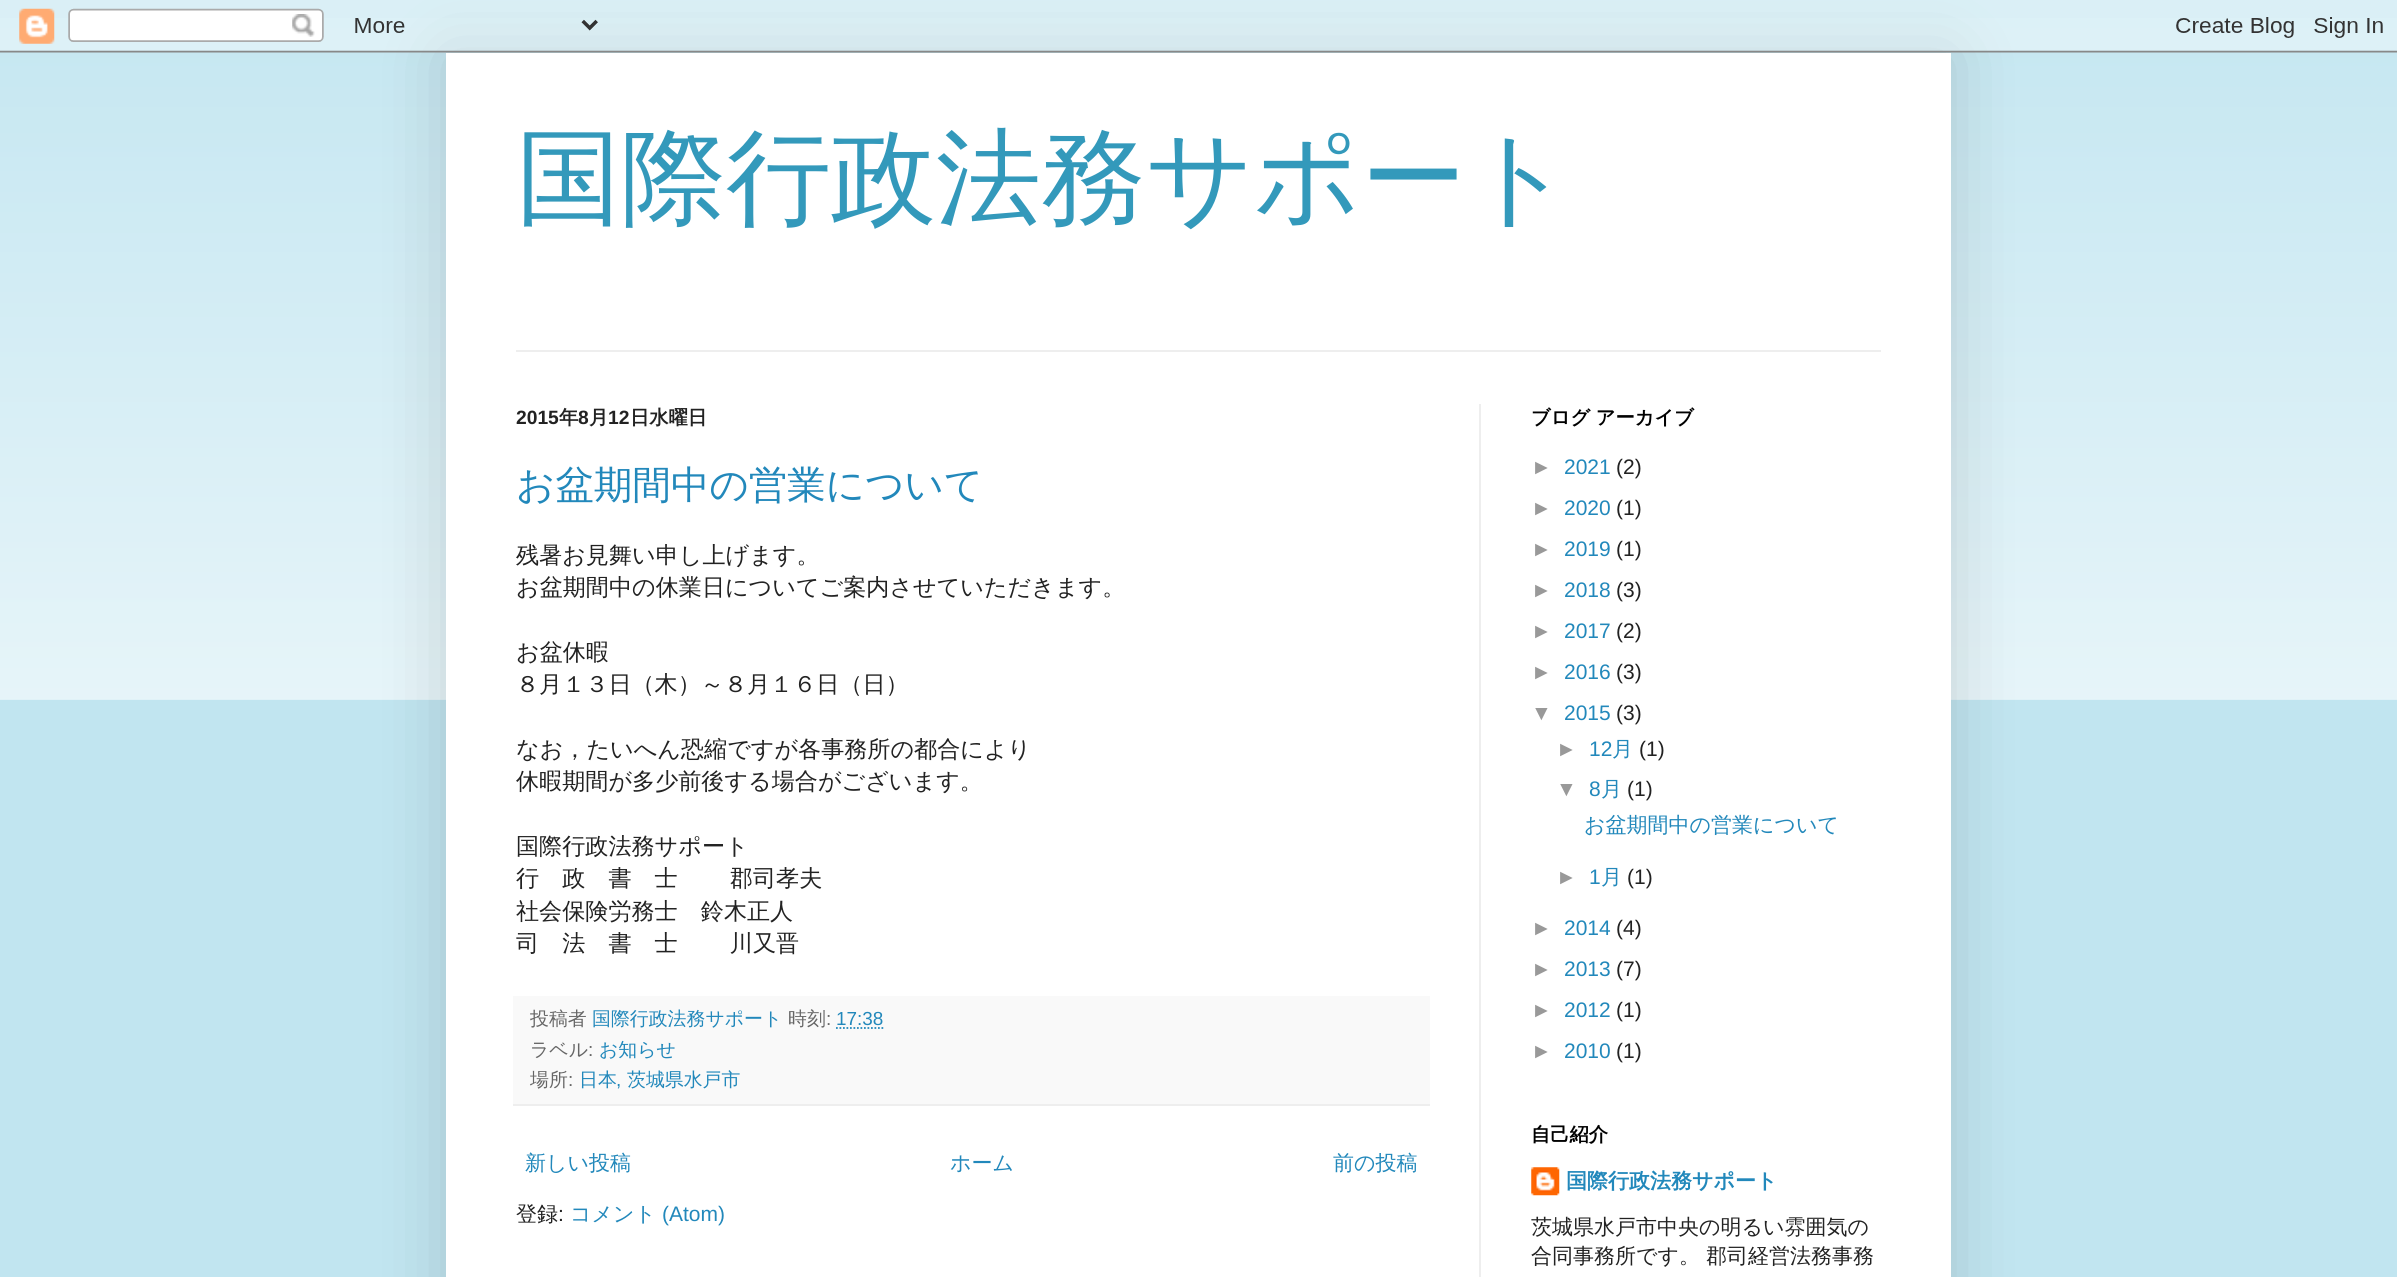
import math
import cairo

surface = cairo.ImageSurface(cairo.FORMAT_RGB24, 2397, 1277)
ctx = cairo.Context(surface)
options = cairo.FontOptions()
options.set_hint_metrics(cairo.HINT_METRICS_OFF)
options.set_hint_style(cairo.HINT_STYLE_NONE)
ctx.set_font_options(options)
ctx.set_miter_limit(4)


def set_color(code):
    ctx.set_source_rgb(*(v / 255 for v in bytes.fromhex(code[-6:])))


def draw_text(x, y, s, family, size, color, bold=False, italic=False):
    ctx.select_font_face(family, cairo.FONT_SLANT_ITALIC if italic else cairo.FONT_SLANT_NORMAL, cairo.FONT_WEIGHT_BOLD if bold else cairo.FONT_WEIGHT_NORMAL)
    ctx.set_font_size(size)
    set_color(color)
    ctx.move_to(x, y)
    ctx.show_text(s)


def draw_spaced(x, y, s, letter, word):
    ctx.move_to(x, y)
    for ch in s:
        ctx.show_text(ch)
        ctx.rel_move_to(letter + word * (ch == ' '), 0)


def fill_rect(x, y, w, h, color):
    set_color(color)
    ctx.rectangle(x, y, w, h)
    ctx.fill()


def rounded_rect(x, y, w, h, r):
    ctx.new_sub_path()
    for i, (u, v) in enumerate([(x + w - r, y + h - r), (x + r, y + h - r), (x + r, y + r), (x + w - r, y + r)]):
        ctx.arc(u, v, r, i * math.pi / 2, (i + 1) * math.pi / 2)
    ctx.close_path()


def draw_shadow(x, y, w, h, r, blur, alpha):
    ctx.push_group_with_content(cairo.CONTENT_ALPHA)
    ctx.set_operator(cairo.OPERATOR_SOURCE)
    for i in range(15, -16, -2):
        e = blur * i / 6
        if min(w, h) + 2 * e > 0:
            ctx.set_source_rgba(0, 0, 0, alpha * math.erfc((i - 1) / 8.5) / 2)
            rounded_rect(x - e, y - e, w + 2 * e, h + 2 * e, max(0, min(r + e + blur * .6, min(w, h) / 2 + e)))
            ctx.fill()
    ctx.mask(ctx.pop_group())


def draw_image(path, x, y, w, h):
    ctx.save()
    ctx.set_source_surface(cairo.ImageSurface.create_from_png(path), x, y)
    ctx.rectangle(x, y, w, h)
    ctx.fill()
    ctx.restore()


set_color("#c1e5f0")
ctx.paint()
draw_image("assets/img2.png", 0, 18, 2397, 682)
set_color("#000000")
draw_shadow(446, 53, 1505, 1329, 0, 35, 0.15)
draw_image("assets/img1.png", 0, 0, 2397, 53)
fill_rect(446, 53, 1505, 1224, "#ffffff")
draw_text(516, 214, "国際行政法務サポート", "WenQuanYi Zen Hei Medium", 105, "#3399bb")
fill_rect(516, 350, 1365, 2, "#eeeeee")
fill_rect(1479, 404, 2, 873, "#eeeeee")
draw_text(516, 424, "2015", "Liberation Sans", 19.25, "#222222", bold=True)
draw_text(559, 424, "年", "WenQuanYi Zen Hei", 19.25, "#222222", bold=True)
draw_text(578, 424, "8", "Liberation Sans", 19.25, "#222222", bold=True)
draw_text(589, 424, "月", "WenQuanYi Zen Hei", 19.25, "#222222", bold=True)
draw_text(608, 424, "12", "Liberation Sans", 19.25, "#222222", bold=True)
draw_text(630, 424, "日水曜日", "WenQuanYi Zen Hei", 19.25, "#222222", bold=True)
draw_text(516, 498, "お盆期間中の営業について", "WenQuanYi Zen Hei Medium", 38.5, "#2288bb")
draw_text(516, 563, "残暑お見舞い申し上げます。", "WenQuanYi Zen Hei Medium", 23.1, "#222222")
draw_text(516, 595, "お盆期間中の休業日についてご案内させていただきます。", "WenQuanYi Zen Hei Medium", 23.1, "#222222")
draw_text(516, 660, "お盆休暇", "WenQuanYi Zen Hei Medium", 23.1, "#222222")
draw_text(516, 692, "８月１３日（木）～８月１６日（日）", "WenQuanYi Zen Hei Medium", 23.1, "#222222")
draw_text(516, 757, "なお，たいへん恐縮ですが各事務所の都合により", "WenQuanYi Zen Hei Medium", 23.1, "#222222")
draw_text(516, 789, "休暇期間が多少前後する場合がございます。", "WenQuanYi Zen Hei Medium", 23.1, "#222222")
draw_text(516, 854, "国際行政法務サポート", "WenQuanYi Zen Hei Medium", 23.1, "#222222")
draw_spaced(516, 886, "行　政　書　士　　 郡司孝夫", 0, -1)
draw_text(516, 919, "社会保険労務士　鈴木正人", "WenQuanYi Zen Hei Medium", 23.1, "#222222")
draw_spaced(516, 951, "司　法　書　士　　 川又晋", 0, -1)
fill_rect(513, 996, 917, 108, "#f9f9f9")
fill_rect(513, 1104, 917, 2, "#eeeeee")
draw_text(530, 1025, "投稿者", "WenQuanYi Zen Hei Medium", 18.9, "#666666")
draw_text(592, 1025, "国際行政法務サポート", "WenQuanYi Zen Hei Medium", 18.9, "#2288bb")
draw_text(788, 1025, "時刻", "WenQuanYi Zen Hei Medium", 18.9, "#666666")
draw_text(826, 1025, ":", "Liberation Sans", 18.9, "#666666")
draw_text(836, 1025, "17:38", "Liberation Sans", 18.9, "#2288bb")
ctx.new_path()
ctx.move_to(836, 1028)
ctx.line_to(883.5, 1028)
ctx.set_line_width(1.8)
ctx.set_dash([1.75, 1.75])
ctx.stroke()
draw_text(530, 1056, "ラベル", "WenQuanYi Zen Hei Medium", 18.9, "#666666")
draw_text(588, 1056, ":", "Liberation Sans", 18.9, "#666666")
draw_text(599, 1056, "お知らせ", "WenQuanYi Zen Hei Medium", 18.9, "#2288bb")
draw_text(530, 1086, "場所", "WenQuanYi Zen Hei Medium", 18.9, "#666666")
draw_text(568, 1086, ":", "Liberation Sans", 18.9, "#666666")
draw_text(579, 1086, "日本", "WenQuanYi Zen Hei Medium", 18.9, "#2288bb")
draw_text(627, 1086, "茨城県水戸市", "WenQuanYi Zen Hei Medium", 18.9, "#2288bb")
draw_text(616, 1086, ",", "Liberation Sans", 18.9, "#2288bb")
draw_text(525, 1170, "新しい投稿", "WenQuanYi Zen Hei Medium", 21, "#2288bb")
draw_text(950, 1170, "ホーム", "WenQuanYi Zen Hei Medium", 21, "#2288bb")
draw_text(1333, 1170, "前の投稿", "WenQuanYi Zen Hei Medium", 21, "#2288bb")
draw_text(516, 1221, "登録", "WenQuanYi Zen Hei Medium", 21, "#222222")
draw_text(558, 1221, ":", "Liberation Sans", 21, "#222222")
draw_text(570, 1221, "コメント", "WenQuanYi Zen Hei Medium", 21, "#2288bb")
draw_text(662, 1221, "(Atom)", "Liberation Sans", 21, "#2288bb")
draw_text(1531, 424, "ブログ アーカイブ", "WenQuanYi Zen Hei", 19.25, "#000000", bold=True)
draw_text(1531, 474, "►", "Liberation Sans", 21, "#999999")
draw_text(1564, 474, "2021", "Liberation Sans", 21, "#2288bb")
draw_text(1616, 474, "(2)", "Liberation Sans", 21, "#222222")
draw_text(1531, 515, "►", "Liberation Sans", 21, "#999999")
draw_text(1564, 515, "2020", "Liberation Sans", 21, "#2288bb")
draw_text(1616, 515, "(1)", "Liberation Sans", 21, "#222222")
draw_text(1531, 556, "►", "Liberation Sans", 21, "#999999")
draw_text(1564, 556, "2019", "Liberation Sans", 21, "#2288bb")
draw_text(1616, 556, "(1)", "Liberation Sans", 21, "#222222")
draw_text(1531, 597, "►", "Liberation Sans", 21, "#999999")
draw_text(1564, 597, "2018", "Liberation Sans", 21, "#2288bb")
draw_text(1616, 597, "(3)", "Liberation Sans", 21, "#222222")
draw_text(1531, 638, "►", "Liberation Sans", 21, "#999999")
draw_text(1564, 638, "2017", "Liberation Sans", 21, "#2288bb")
draw_text(1616, 638, "(2)", "Liberation Sans", 21, "#222222")
draw_text(1531, 679, "►", "Liberation Sans", 21, "#999999")
draw_text(1564, 679, "2016", "Liberation Sans", 21, "#2288bb")
draw_text(1616, 679, "(3)", "Liberation Sans", 21, "#222222")
draw_text(1531, 720, "▼", "Liberation Sans", 21, "#999999")
draw_text(1564, 720, "2015", "Liberation Sans", 21, "#2288bb")
draw_text(1616, 720, "(3)", "Liberation Sans", 21, "#222222")
draw_text(1556, 756, "►", "Liberation Sans", 21, "#999999")
draw_text(1589, 756, "12", "Liberation Sans", 21, "#2288bb")
draw_text(1612, 756, "月", "WenQuanYi Zen Hei Medium", 21, "#2288bb")
draw_text(1639, 756, "(1)", "Liberation Sans", 21, "#222222")
draw_text(1556, 796, "▼", "Liberation Sans", 21, "#999999")
draw_text(1589, 796, "8", "Liberation Sans", 21, "#2288bb")
draw_text(1601, 796, "月", "WenQuanYi Zen Hei Medium", 21, "#2288bb")
draw_text(1627, 796, "(1)", "Liberation Sans", 21, "#222222")
draw_text(1584, 832, "お盆期間中の営業について", "WenQuanYi Zen Hei Medium", 21, "#2288bb")
draw_text(1556, 884, "►", "Liberation Sans", 21, "#999999")
draw_text(1589, 884, "1", "Liberation Sans", 21, "#2288bb")
draw_text(1601, 884, "月", "WenQuanYi Zen Hei Medium", 21, "#2288bb")
draw_text(1627, 884, "(1)", "Liberation Sans", 21, "#222222")
draw_text(1531, 935, "►", "Liberation Sans", 21, "#999999")
draw_text(1564, 935, "2014", "Liberation Sans", 21, "#2288bb")
draw_text(1616, 935, "(4)", "Liberation Sans", 21, "#222222")
draw_text(1531, 976, "►", "Liberation Sans", 21, "#999999")
draw_text(1564, 976, "2013", "Liberation Sans", 21, "#2288bb")
draw_text(1616, 976, "(7)", "Liberation Sans", 21, "#222222")
draw_text(1531, 1017, "►", "Liberation Sans", 21, "#999999")
draw_text(1564, 1017, "2012", "Liberation Sans", 21, "#2288bb")
draw_text(1616, 1017, "(1)", "Liberation Sans", 21, "#222222")
draw_text(1531, 1058, "►", "Liberation Sans", 21, "#999999")
draw_text(1564, 1058, "2010", "Liberation Sans", 21, "#2288bb")
draw_text(1616, 1058, "(1)", "Liberation Sans", 21, "#222222")
draw_text(1531, 1141, "自己紹介", "WenQuanYi Zen Hei", 19.25, "#000000", bold=True)
draw_image("assets/img3.png", 1531, 1167, 29, 29)
draw_text(1566, 1188, "国際行政法務サポート", "WenQuanYi Zen Hei", 21, "#2288bb", bold=True)
draw_text(1531, 1234, "茨城県水戸市中央の明るい雰囲気の", "WenQuanYi Zen Hei Medium", 21, "#222222")
draw_text(1531, 1263, "合同事務所です。", "WenQuanYi Zen Hei Medium", 21, "#222222")
draw_text(1706, 1263, "郡司経営法務事務", "WenQuanYi Zen Hei Medium", 21, "#222222")
surface.write_to_png("output.png")
